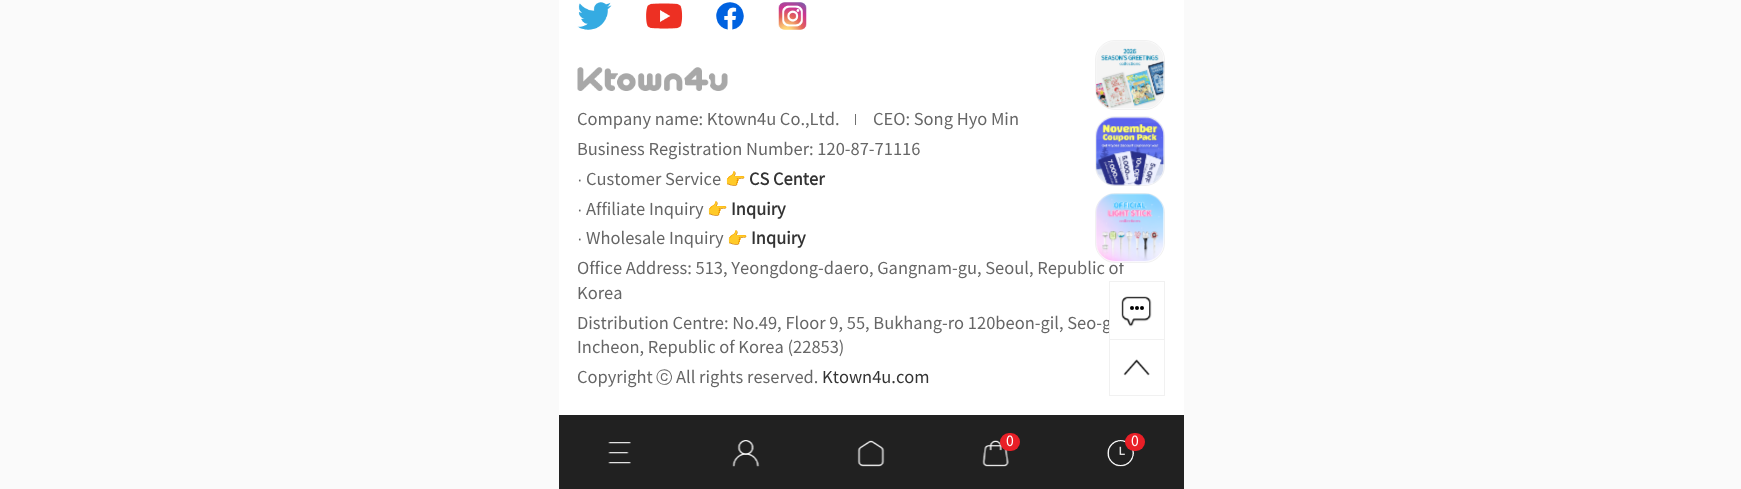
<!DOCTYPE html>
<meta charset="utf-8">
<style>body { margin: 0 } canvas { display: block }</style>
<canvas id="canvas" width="1741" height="489"></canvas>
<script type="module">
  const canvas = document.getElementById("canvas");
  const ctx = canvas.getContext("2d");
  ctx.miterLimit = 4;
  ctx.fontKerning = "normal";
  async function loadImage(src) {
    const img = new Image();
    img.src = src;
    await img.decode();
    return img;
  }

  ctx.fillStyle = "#fafafa";
  ctx.fillRect(0, 0, 1741, 489);
  ctx.fillStyle = "#ffffff";
  ctx.fillRect(559, 0, 625, 415);
  ctx.drawImage(await loadImage("img1.png"), 577, 2, 35, 28);
  ctx.drawImage(await loadImage("img2.png"), 646, 3, 37, 26);
  ctx.drawImage(await loadImage("img3.png"), 716, 2, 28, 28);
  ctx.drawImage(await loadImage("img4.png"), 778, 2, 29, 28);
  ctx.drawImage(await loadImage("img5.png"), 577, 67, 151, 24);
  ctx.font = "16.5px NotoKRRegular";
  ctx.fillStyle = "#666666";
  ctx.fillText("Company name: Ktown4u Co.,Ltd.", 577, 125);
  ctx.fillStyle = "#707070";
  ctx.fillRect(855, 114, 1, 11);
  ctx.fillStyle = "#666666";
  ctx.fillText("CEO: Song Hyo Min", 873, 125);
  ctx.fillText("Business Registration Number: 120-87-71116", 577, 155);
  ctx.font = "16.5px Liberation Sans";
  ctx.fillText("·", 577, 185);
  ctx.font = "16.5px NotoKRRegular";
  ctx.fillText("Customer Service", 586, 185);
  ctx.font = "16.5px Noto Color Emoji";
  ctx.fillText("👉", 725, 185);
  ctx.font = "bold 16.5px NotoKRRegular";
  ctx.fillStyle = "#333333";
  ctx.fillText("CS Center", 749, 185);
  ctx.font = "16.5px Liberation Sans";
  ctx.fillStyle = "#666666";
  ctx.fillText("·", 577, 215);
  ctx.font = "16.5px NotoKRRegular";
  ctx.fillText("Affiliate Inquiry", 586, 215);
  ctx.font = "16.5px Noto Color Emoji";
  ctx.fillText("👉", 707, 215);
  ctx.font = "bold 16.5px NotoKRRegular";
  ctx.fillStyle = "#333333";
  ctx.fillText("Inquiry", 731, 215);
  ctx.font = "16.5px Liberation Sans";
  ctx.fillStyle = "#666666";
  ctx.fillText("·", 577, 244);
  ctx.font = "16.5px NotoKRRegular";
  ctx.fillText("Wholesale Inquiry", 586, 244);
  ctx.font = "16.5px Noto Color Emoji";
  ctx.fillText("👉", 727, 244);
  ctx.font = "bold 16.5px NotoKRRegular";
  ctx.fillStyle = "#333333";
  ctx.fillText("Inquiry", 751, 244);
  ctx.font = "16.5px NotoKRRegular";
  ctx.fillStyle = "#666666";
  ctx.fillText("Office Address: 513, Yeongdong-daero, Gangnam-gu, Seoul, Republic of", 577, 274);
  ctx.fillText("Korea", 577, 299);
  ctx.fillText("Distribution Centre: No.49, Floor 9, 55, Bukhang-ro 120beon-gil, Seo-g", 577, 329);
  ctx.fillText("Incheon, Republic of Korea (22853)", 577, 353);
  ctx.fillText("Copyright", 577, 383);
  ctx.font = "500 16.5px WenQuanYi Zen Hei";
  ctx.fillText("ⓒ", 656, 383);
  ctx.font = "16.5px NotoKRRegular";
  ctx.fillText("All rights reserved.", 676, 383);
  ctx.fillStyle = "#333333";
  ctx.fillText("Ktown4u.com", 822, 383);
  ctx.beginPath();
  ctx.roundRect(1095.5, 40.5, 69, 69, 19.5);
  ctx.strokeStyle = "#f1f1f1";
  ctx.stroke();
  ctx.drawImage(await loadImage("img6.png"), 1096, 41, 69, 68);
  ctx.beginPath();
  ctx.roundRect(1095.5, 116.5, 69, 69, 19.5);
  ctx.stroke();
  ctx.drawImage(await loadImage("img7.png"), 1096, 117, 69, 69);
  ctx.fillStyle = "#ffffff";
  ctx.beginPath();
  ctx.roundRect(1095.5, 193.5, 69, 69, 19.5);
  ctx.fill();
  ctx.stroke();
  ctx.drawImage(await loadImage("img8.png"), 1096, 193, 69, 69);
  ctx.strokeRect(1109.5, 281.5, 55, 114);
  ctx.fillRect(1110, 320, 1, 12);
  ctx.drawImage(await loadImage("img9.png"), 1121, 296, 31, 31);
  ctx.fillStyle = "#000000";
  ctx.beginPath();
  ctx.arc(1137, 308, 2, 0, Math.PI * 2);
  ctx.fill();
  ctx.beginPath();
  ctx.arc(1132, 308, 2, 0, Math.PI * 2);
  ctx.fill();
  ctx.beginPath();
  ctx.arc(1142, 308, 2, 0, Math.PI * 2);
  ctx.fill();
  ctx.fillStyle = "#f1f1f1";
  ctx.fillRect(1110, 339, 54, 1);
  ctx.drawImage(await loadImage("img10.png"), 1123, 359, 27, 17);
  ctx.fillStyle = "#212121";
  ctx.fillRect(559, 415, 625, 74);
  ctx.drawImage(await loadImage("img11.png"), 608, 442, 23, 22);
  ctx.drawImage(await loadImage("img12.png"), 732, 440, 28, 27);
  ctx.drawImage(await loadImage("img13.png"), 857, 440, 28, 27);
  ctx.drawImage(await loadImage("img14.png"), 982, 440, 27, 27);
  ctx.fillStyle = "#e91f27";
  ctx.beginPath();
  ctx.roundRect(1000, 433, 20, 18, 9);
  ctx.fill();
  ctx.font = "14px NotoKRRegular";
  ctx.fillStyle = "#ffffff";
  ctx.fillText("0", 1006, 446);
  ctx.drawImage(await loadImage("img15.png"), 1107, 440, 27, 27);
  ctx.fillStyle = "#e91f27";
  ctx.beginPath();
  ctx.roundRect(1125, 433, 20, 18, 9);
  ctx.fill();
  ctx.fillStyle = "#ffffff";
  ctx.fillText("0", 1131, 446);
</script>
